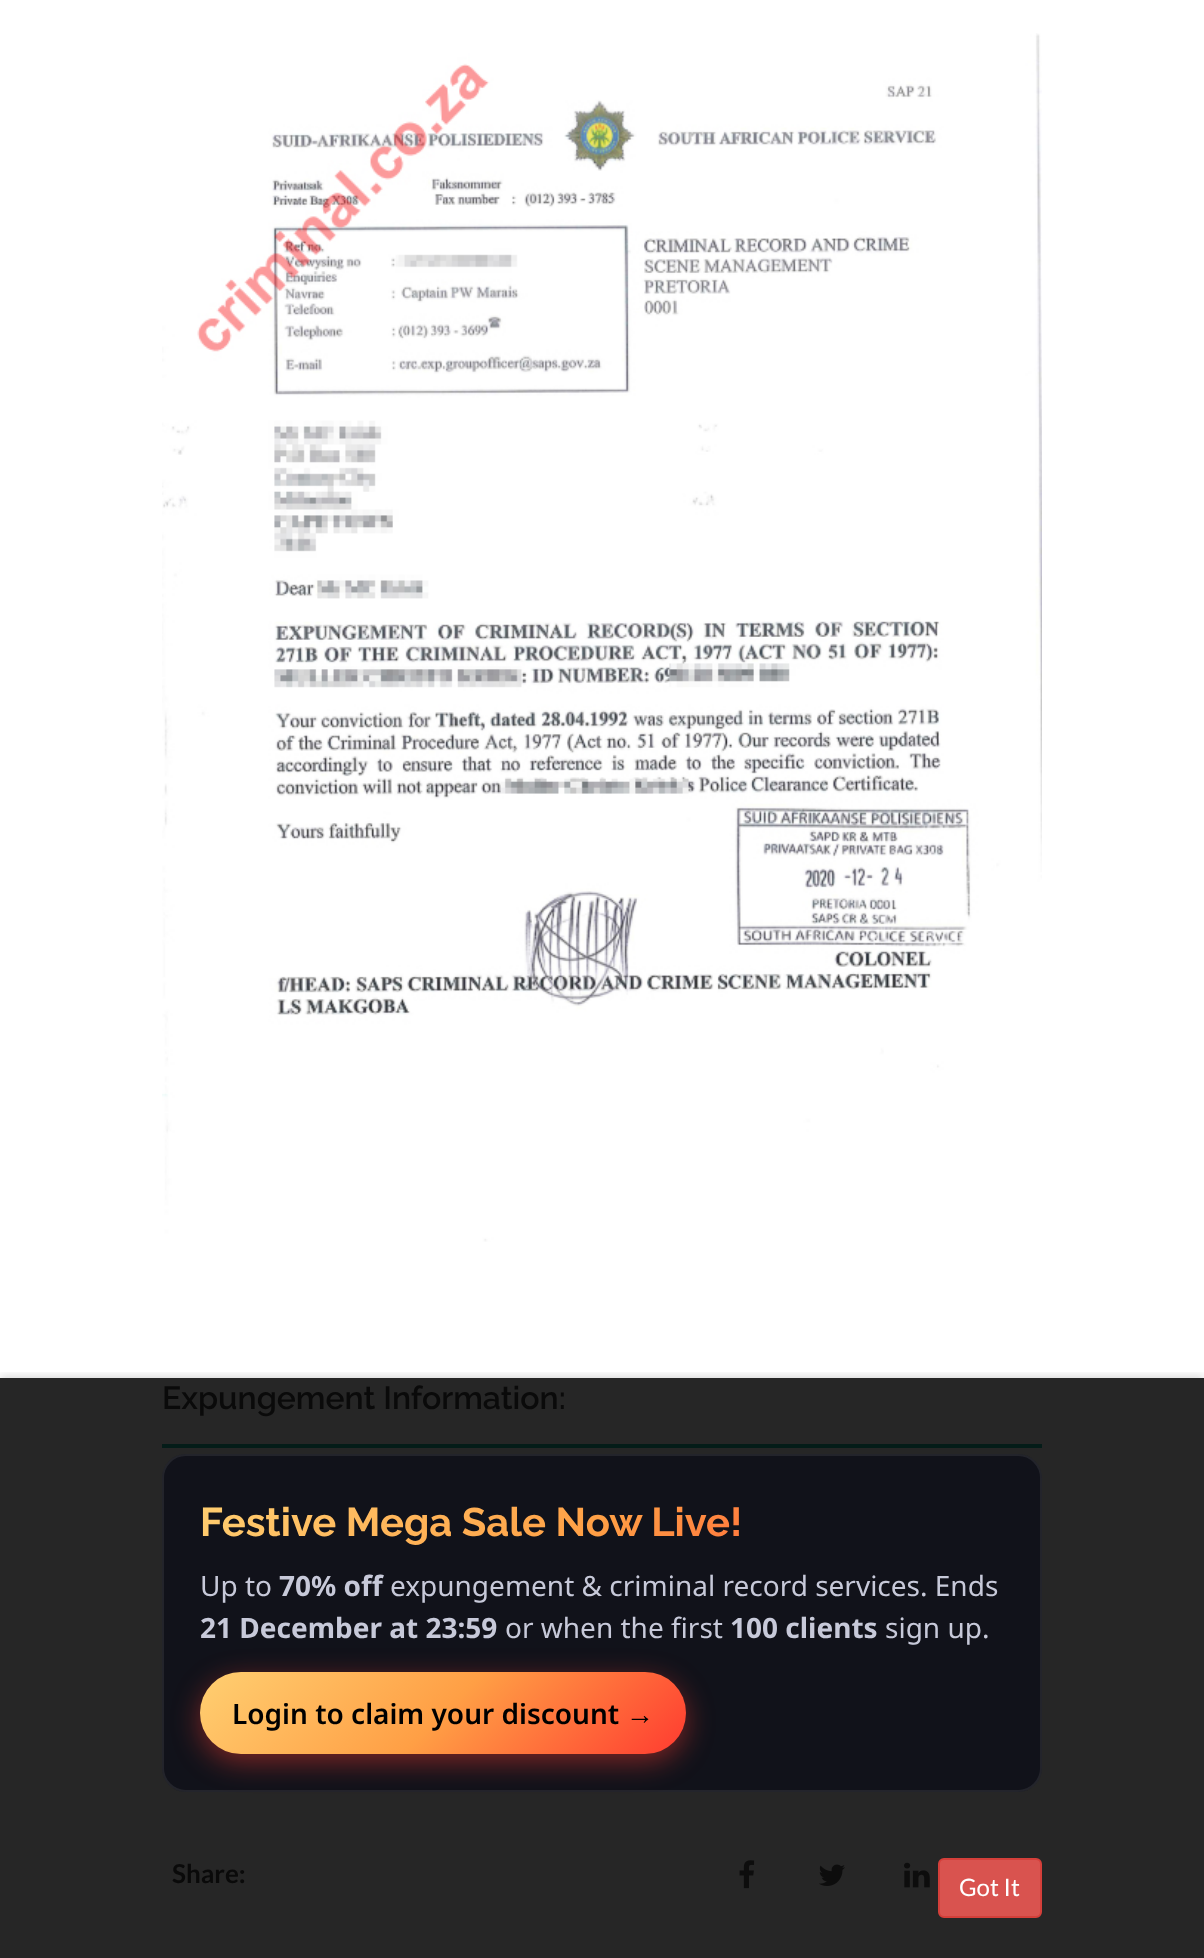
<!DOCTYPE html>
<meta charset="utf-8">
<style>body { margin: 0 } canvas { display: block }</style>
<canvas id="canvas" width="1204" height="1958"></canvas>
<script type="module">
  const canvas = document.getElementById("canvas");
  const ctx = canvas.getContext("2d");
  ctx.miterLimit = 4;
  ctx.fontKerning = "normal";
  async function loadImage(src) {
    const img = new Image();
    img.src = src;
    await img.decode();
    return img;
  }
  let gradient;

  ctx.fillStyle = "#ffffff";
  ctx.fillRect(0, 0, 1204, 1958);
  ctx.fillStyle = "#262626";
  ctx.fillRect(0, 1378, 1204, 580);
  ctx.drawImage(await loadImage("img1.png"), 162, 33, 880, 1209);
  ctx.fillStyle = "#041c18";
  ctx.fillRect(162, 1444, 880, 4);
  ctx.font = "600 32px Raleway";
  ctx.fillStyle = "#0a0a0a";
  ctx.fillText("Expungement Information:", 162, 1409);
  ctx.font = "bold 26px Lato";
  ctx.fillText("Share:", 172, 1883);
  ctx.drawImage(await loadImage("img2.png"), 739, 1860, 16, 29);
  ctx.drawImage(await loadImage("img3.png"), 819, 1864, 26, 22);
  ctx.drawImage(await loadImage("img4.png"), 904, 1862, 26, 26);
  ctx.save();
  ctx.beginPath();
  ctx.rect(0, 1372, 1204, 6);
  ctx.clip();
  ctx.fillStyle = "rgba(0, 0, 0, 0.15)";
  ctx.filter = "blur(4px)";
  ctx.beginPath();
  ctx.rect(0, 1376, 1204, 580);
  ctx.fill();
  ctx.filter = "none";
  ctx.restore();
  ctx.fillStyle = "#11121a";
  ctx.beginPath();
  ctx.roundRect(162, 1454, 880, 338, 24);
  ctx.fill();
  ctx.beginPath();
  ctx.roundRect(163, 1455, 878, 336, 23);
  ctx.strokeStyle = "rgba(255, 255, 255, 0.08)";
  ctx.lineWidth = 2;
  ctx.stroke();
  ctx.font = "bold 40px Raleway";
  gradient = ctx.createLinearGradient(386, 1306, 818, 1738);
  gradient.addColorStop(0, "#ffcf71");
  gradient.addColorStop(0.5, "#ff9f45");
  gradient.addColorStop(1, "#ff3b30");
  ctx.fillStyle = gradient;
  ctx.fillText("Festive Mega Sale Now Live!", 200, 1536);
  ctx.font = "28px Noto Sans";
  ctx.fillStyle = "#c7c9d9";
  ctx.fillText("Up to", 200, 1596);
  ctx.font = "bold 28px Noto Sans";
  ctx.fillText("70% off", 279, 1596);
  ctx.font = "28px Noto Sans";
  ctx.fillText("expungement & criminal record services. Ends", 390, 1596);
  ctx.font = "bold 28px Noto Sans";
  ctx.fillText("21 December at 23:59", 200, 1638);
  ctx.font = "28px Noto Sans";
  ctx.fillText("or when the first", 505, 1638);
  ctx.font = "bold 28px Noto Sans";
  ctx.fillText("100 clients", 730, 1638);
  ctx.font = "28px Noto Sans";
  ctx.fillText("sign up.", 885, 1638);
  ctx.fillStyle = "rgba(255, 59, 48, 0.45)";
  ctx.filter = "blur(14px)";
  ctx.beginPath();
  ctx.roundRect(200, 1680, 486, 82, 41);
  ctx.fill();
  ctx.filter = "none";
  gradient = ctx.createLinearGradient(301, 1571, 585, 1855);
  gradient.addColorStop(0, "#ffcf71");
  gradient.addColorStop(0.5, "#ff9f45");
  gradient.addColorStop(1, "#ff3b30");
  ctx.fillStyle = gradient;
  ctx.beginPath();
  ctx.roundRect(200, 1672, 486, 82, 41);
  ctx.fill();
  ctx.font = "600 28px Noto Sans";
  ctx.fillStyle = "#000000";
  ctx.fillText("Login to claim your discount", 232, 1724);
  ctx.font = "bold 28px Liberation Sans";
  ctx.fillText("→", 626, 1724);
  ctx.fillStyle = "#d9534f";
  ctx.beginPath();
  ctx.roundRect(939, 1859, 102, 58, 5);
  ctx.fill();
  ctx.strokeStyle = "#d43f3a";
  ctx.stroke();
  ctx.font = "24px Lato";
  ctx.fillStyle = "#ffffff";
  ctx.fillText("Got It", 959, 1896);
</script>
